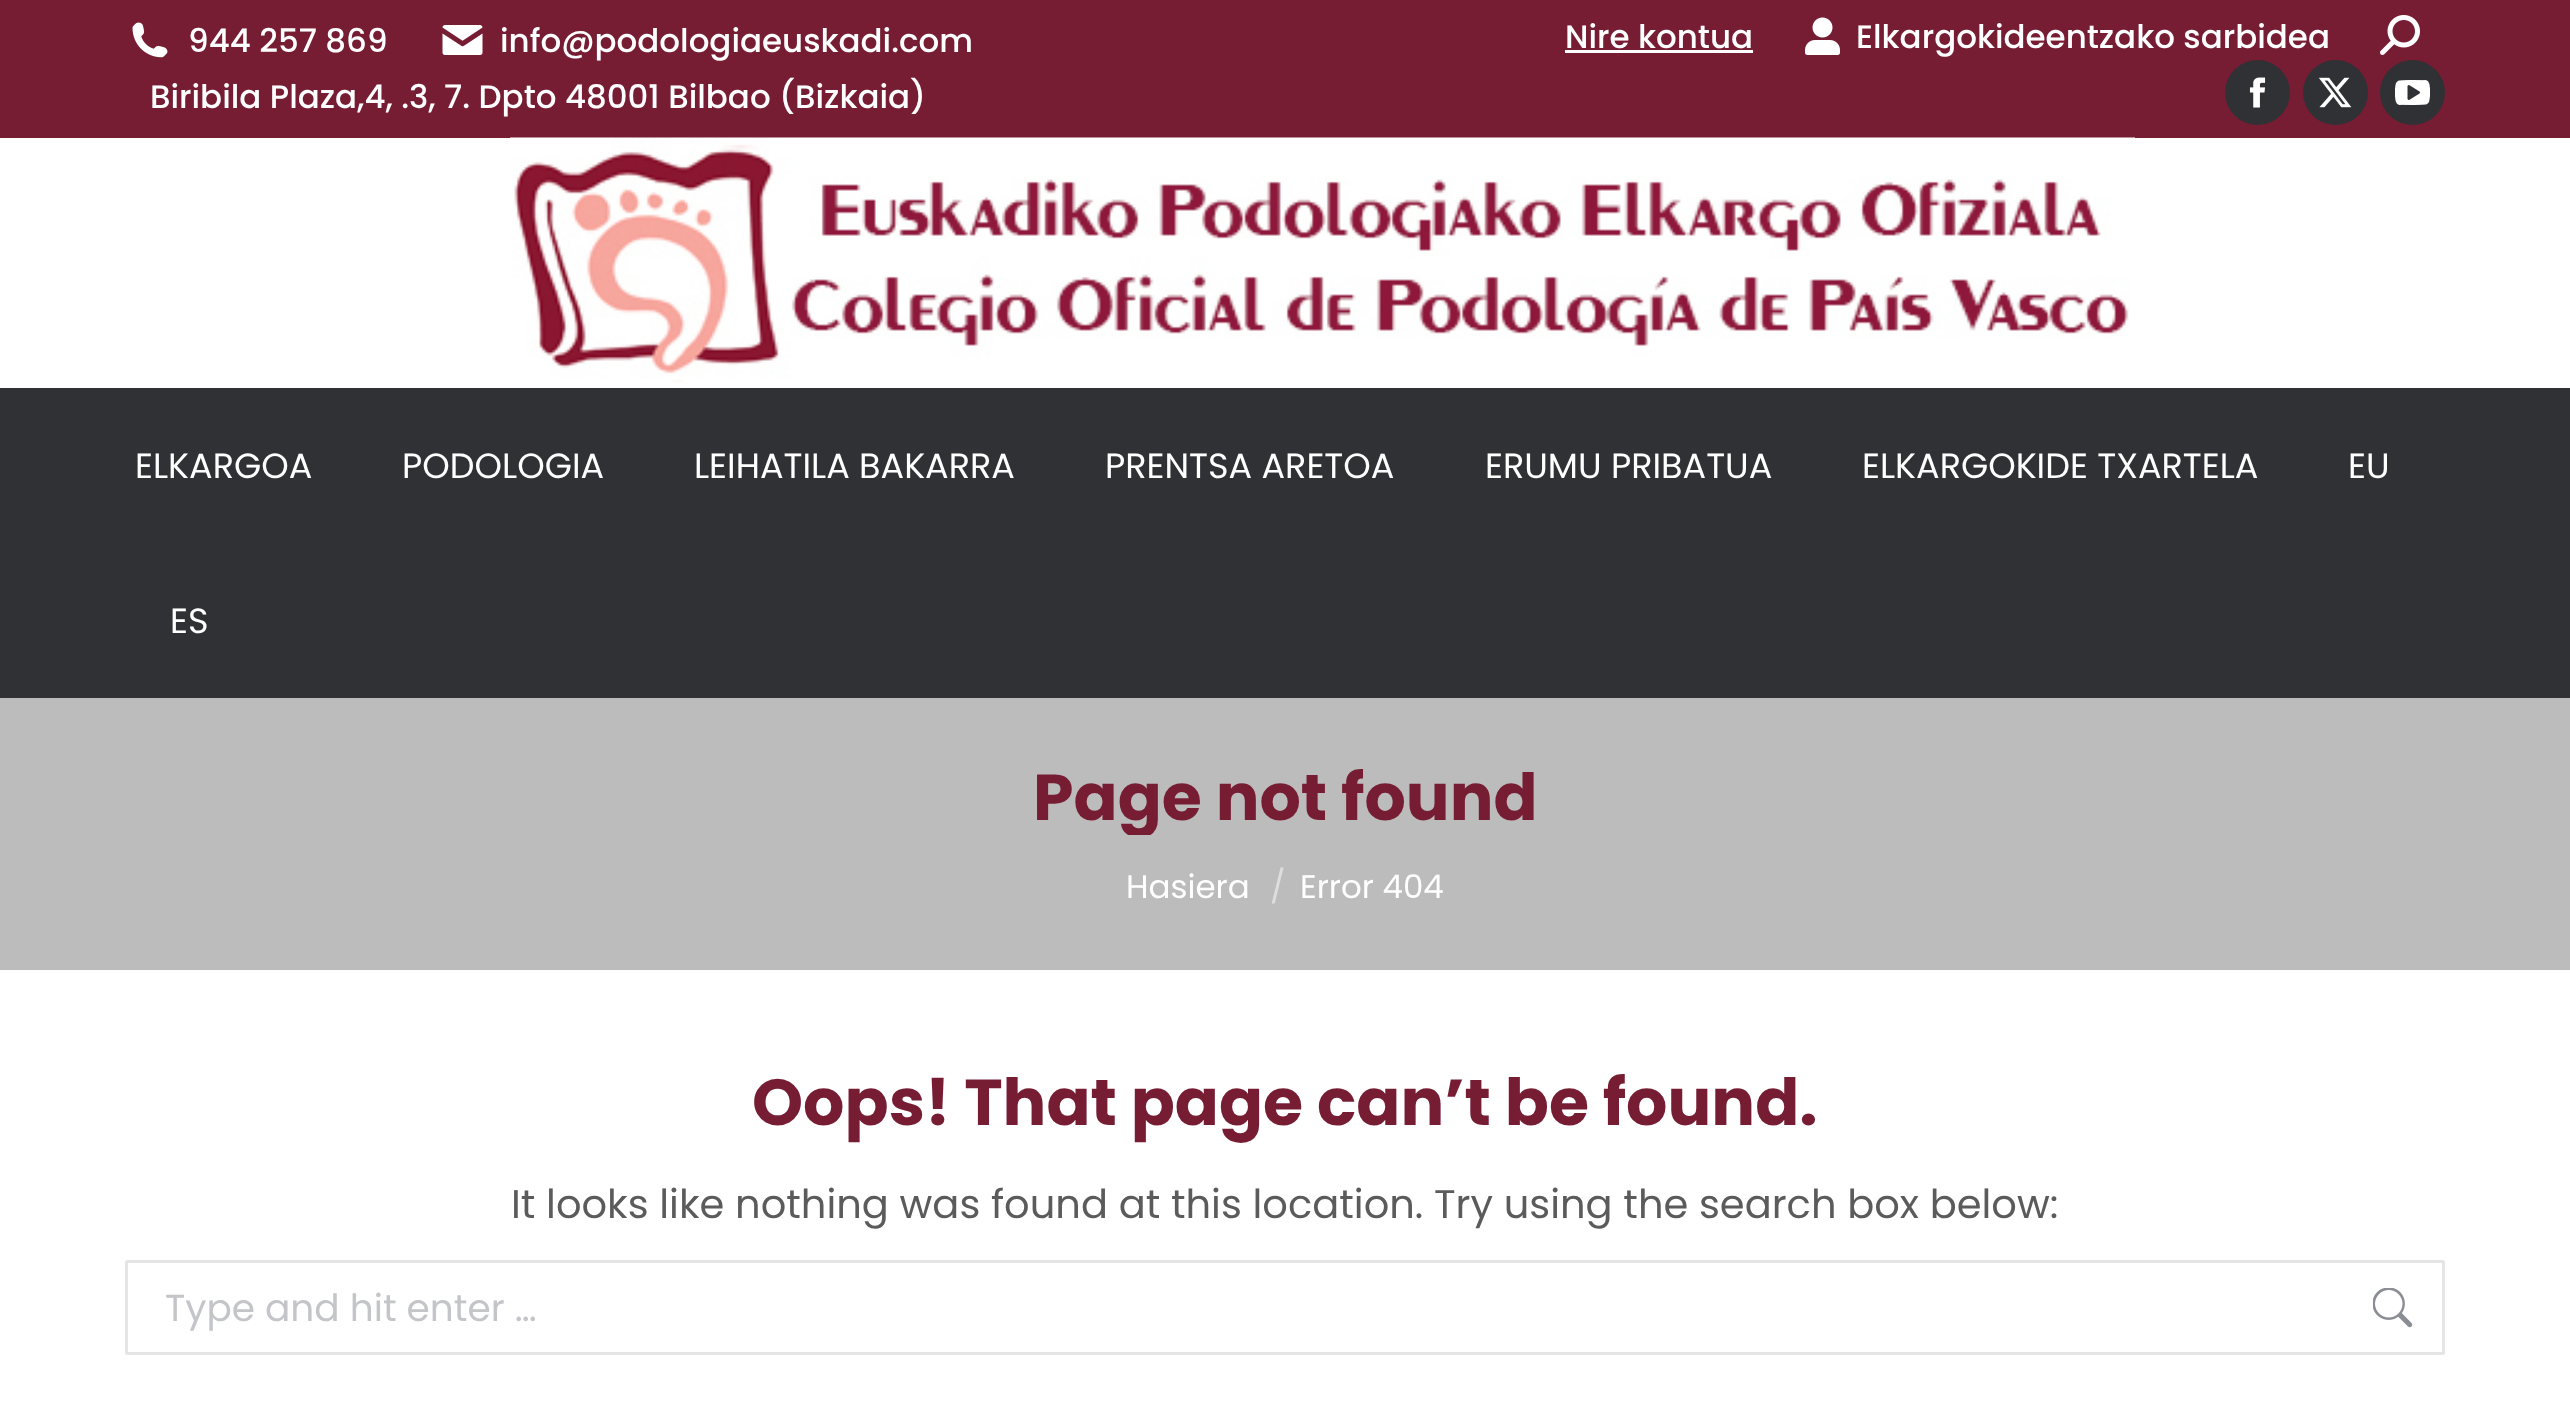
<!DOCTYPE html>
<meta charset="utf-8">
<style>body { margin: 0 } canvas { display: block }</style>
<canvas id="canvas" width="2570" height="1403"></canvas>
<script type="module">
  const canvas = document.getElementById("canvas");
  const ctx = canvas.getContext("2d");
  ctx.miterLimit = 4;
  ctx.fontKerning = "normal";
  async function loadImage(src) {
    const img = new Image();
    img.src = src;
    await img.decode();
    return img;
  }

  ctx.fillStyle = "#ffffff";
  ctx.fillRect(0, 0, 2570, 1403);
  ctx.fillStyle = "#761d34";
  ctx.fillRect(0, 0, 2570, 138);
  ctx.drawImage(await loadImage("img1.png"), 132, 22, 36, 36);
  ctx.font = "500 32.5px Poppins";
  ctx.fillStyle = "#ffffff";
  ctx.fillText("944 257 869", 188, 52);
  ctx.drawImage(await loadImage("img2.png"), 442, 25, 41, 30);
  ctx.fillText("info@podologiaeuskadi.com", 500, 52);
  ctx.fillText("Biribila Plaza,4, .3, 7. Dpto 48001 Bilbao (Bizkaia)", 150, 108);
  ctx.fillText("Nire kontua", 1565, 48);
  ctx.fillRect(1565, 50, 188, 3);
  ctx.drawImage(await loadImage("img3.png"), 1805, 17, 35, 38);
  ctx.fillText("Elkargokideentzako sarbidea", 1856, 48);
  ctx.drawImage(await loadImage("img4.png"), 2380, 15, 40, 40);
  ctx.fillStyle = "#303135";
  ctx.beginPath();
  ctx.arc(2257.5, 92.5, 32.5, 0, Math.PI * 2);
  ctx.fill();
  ctx.drawImage(await loadImage("img5.png"), 2249, 77, 17, 31);
  ctx.beginPath();
  ctx.arc(2335.5, 92.5, 32.5, 0, Math.PI * 2);
  ctx.fill();
  ctx.drawImage(await loadImage("img6.png"), 2319, 77, 33, 31);
  ctx.beginPath();
  ctx.arc(2412.5, 92.5, 32.5, 0, Math.PI * 2);
  ctx.fill();
  ctx.drawImage(await loadImage("img7.png"), 2395, 80, 35, 25);
  ctx.drawImage(await loadImage("img8.png"), 510, 137, 1625, 246);
  ctx.fillRect(0, 388, 2570, 310);
  ctx.font = "35px Poppins";
  ctx.fillStyle = "#ffffff";
  ctx.fillText("ELKARGOA", 135, 478);
  ctx.fillText("PODOLOGIA", 402, 478);
  ctx.fillText("LEIHATILA BAKARRA", 694, 478);
  ctx.fillText("PRENTSA ARETOA", 1105, 478);
  ctx.fillText("ERUMU PRIBATUA", 1485, 478);
  ctx.fillText("ELKARGOKIDE TXARTELA", 1862, 478);
  ctx.fillText("EU", 2348, 478);
  ctx.fillText("ES", 170, 633);
  ctx.fillStyle = "#bcbcbc";
  ctx.fillRect(0, 698, 2570, 272);
  ctx.save();
  ctx.beginPath();
  ctx.rect(1033, 760, 505, 75);
  ctx.clip();
  ctx.font = "bold 65px Poppins";
  ctx.fillStyle = "#761d34";
  ctx.fillText("Page not found", 1033, 820);
  ctx.restore();
  ctx.font = "32.5px Poppins";
  ctx.fillStyle = "#ffffff";
  ctx.fillText("Hasiera", 1126, 898);
  ctx.fillStyle = "#dedede";
  ctx.fillText("/", 1270, 898);
  ctx.fillStyle = "#ffffff";
  ctx.fillText("Error 404", 1300, 898);
  ctx.font = "bold 65px Poppins";
  ctx.fillStyle = "#761d34";
  ctx.fillText("Oops! That page can’t be found.", 752, 1125);
  ctx.font = "40px Poppins";
  ctx.fillStyle = "#5b5b5b";
  ctx.fillText("It looks like nothing was found at this location. Try using the search box below:", 511, 1218);
  ctx.beginPath();
  ctx.roundRect(126.5, 1261.5, 2317, 92, 1);
  ctx.strokeStyle = "#e5e5e5";
  ctx.lineWidth = 3;
  ctx.stroke();
  ctx.font = "37.5px Poppins";
  ctx.fillStyle = "#c4c5c9";
  ctx.fillText("Type and hit enter …", 165, 1321);
  ctx.drawImage(await loadImage("img9.png"), 2373, 1288, 40, 40);
</script>
